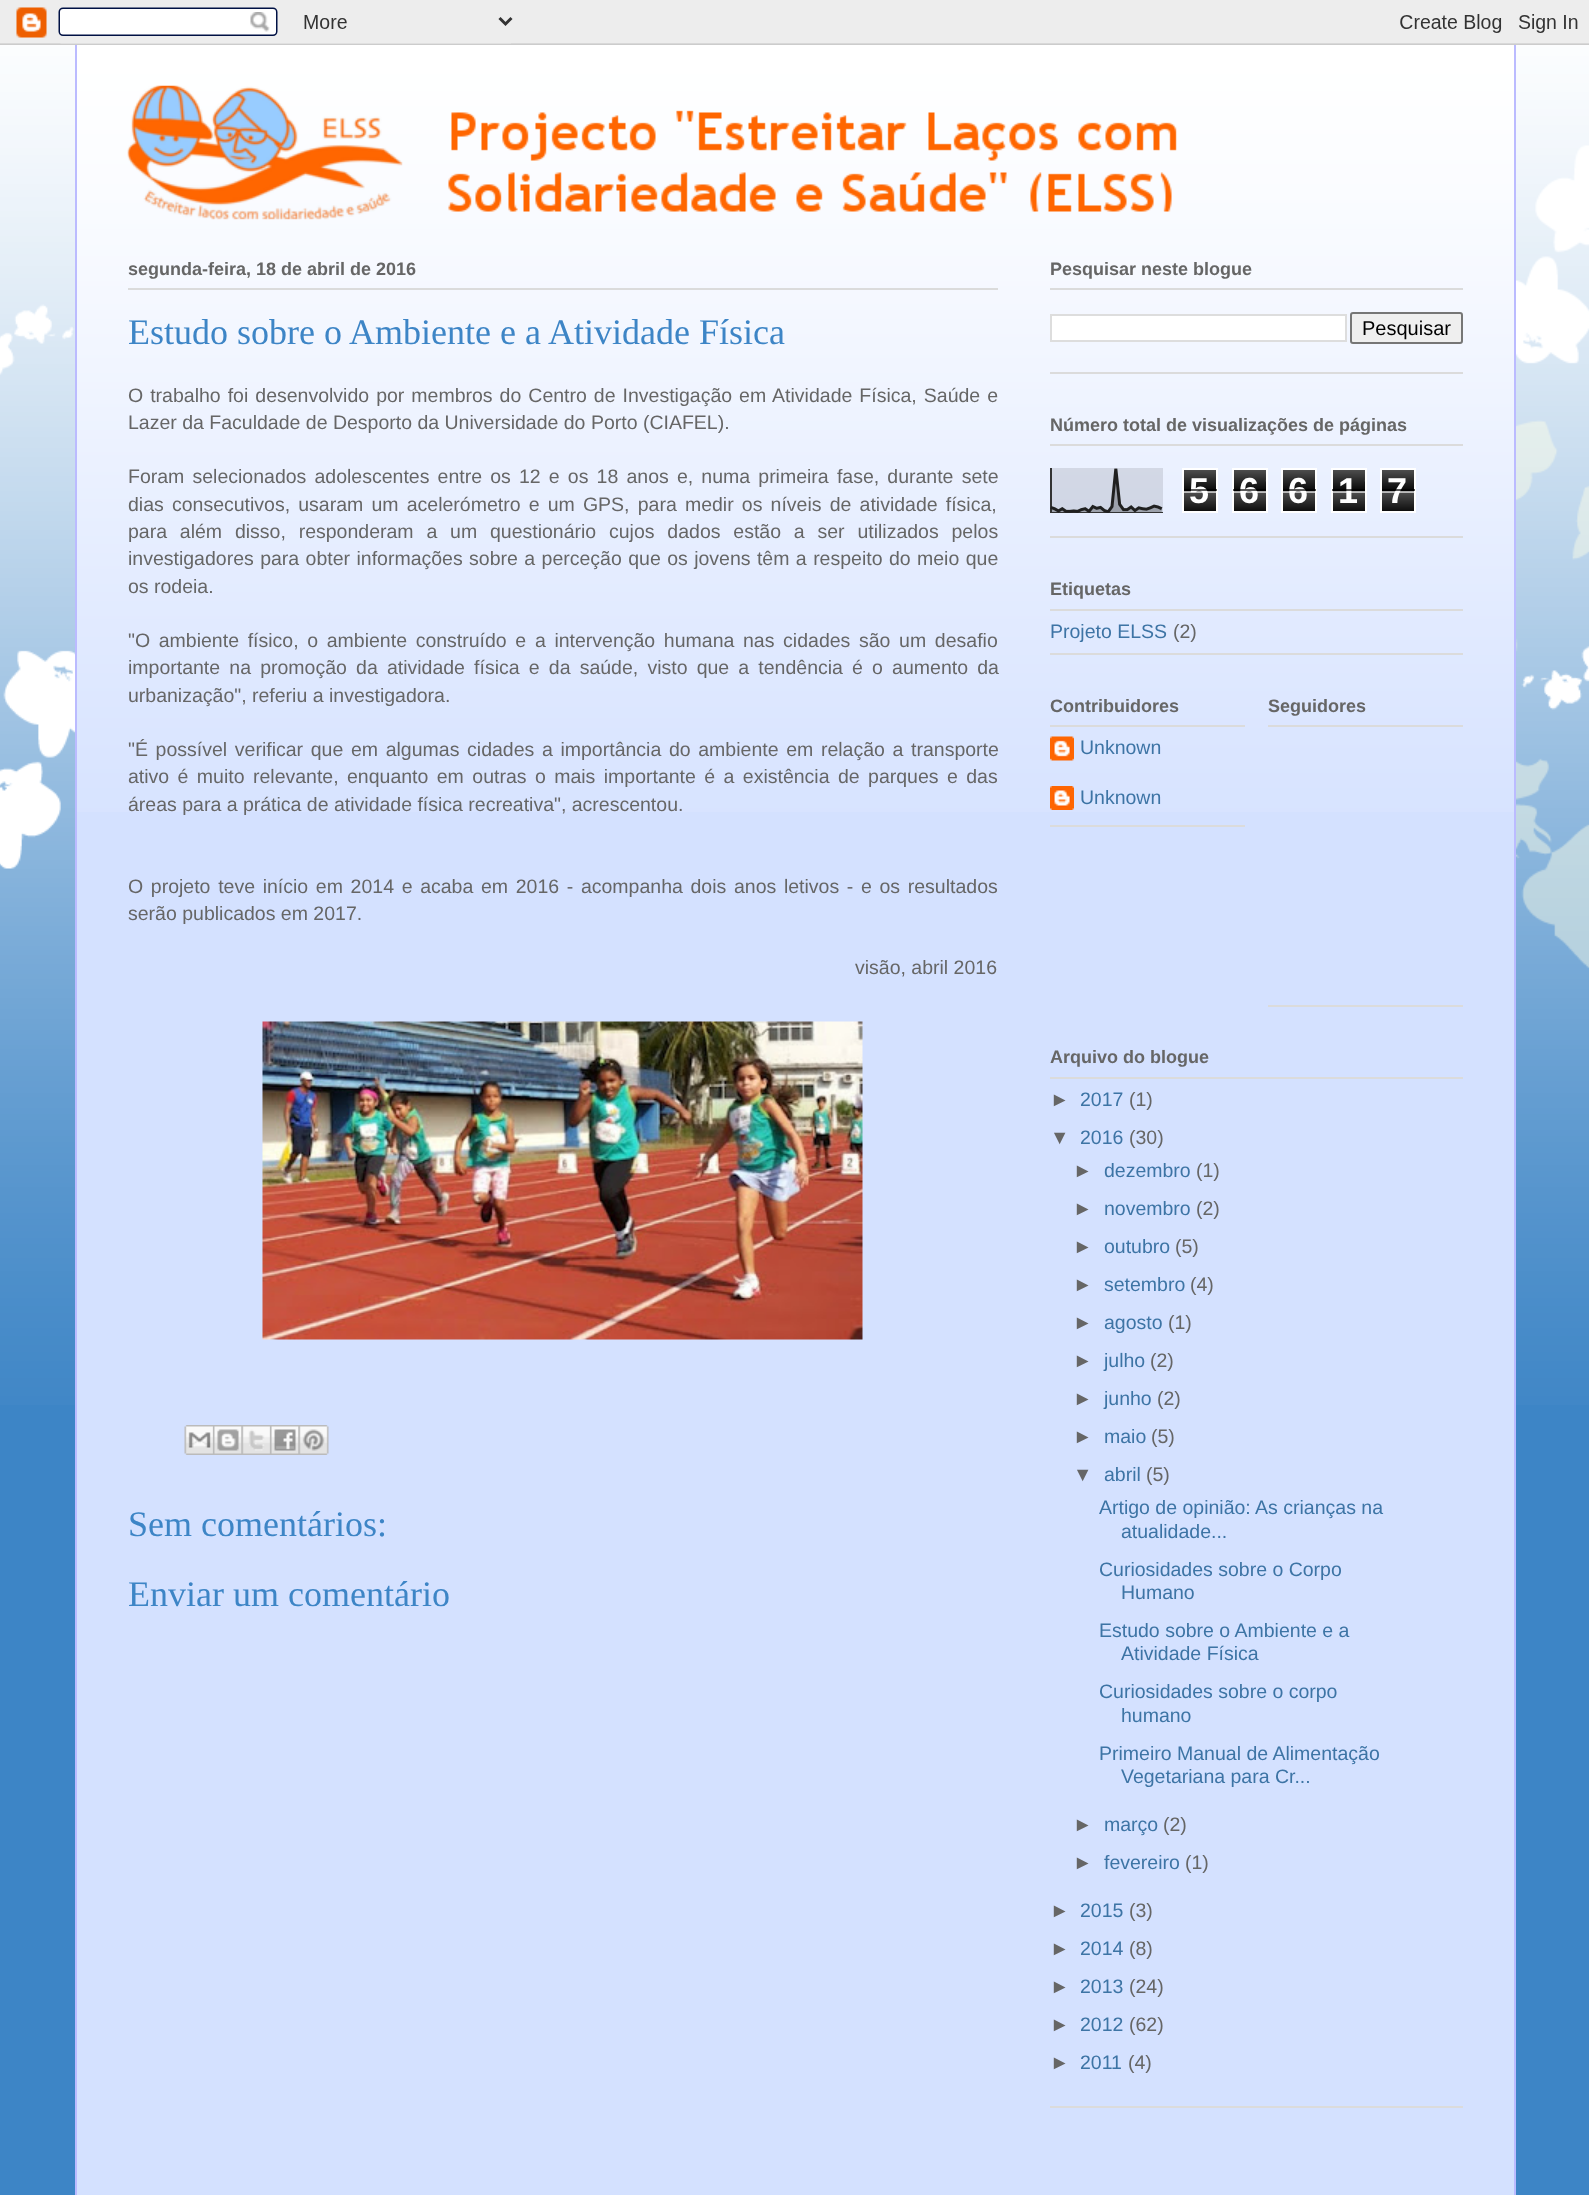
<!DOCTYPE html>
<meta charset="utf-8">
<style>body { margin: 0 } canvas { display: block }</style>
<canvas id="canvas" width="1589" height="2195"></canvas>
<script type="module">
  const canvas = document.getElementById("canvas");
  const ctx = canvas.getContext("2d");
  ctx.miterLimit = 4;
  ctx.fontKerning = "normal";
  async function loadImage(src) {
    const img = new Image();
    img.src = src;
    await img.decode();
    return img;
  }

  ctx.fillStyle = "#3d85c6";
  ctx.fillRect(0, 0, 1589, 2195);
  ctx.drawImage(await loadImage("img2.png"), 0, 43, 1589, 1362);
  ctx.drawImage(await loadImage("img1.png"), 0, 0, 1589, 45);
  ctx.fillStyle = "#d4e1ff";
  ctx.fillRect(77, 55, 1437, 2140);
  ctx.drawImage(await loadImage("img3.png"), 77, 45, 1437, 767);
  ctx.fillStyle = "#bbbbff";
  ctx.fillRect(1514, 45, 2, 2150);
  ctx.fillRect(75, 45, 2, 2150);
  ctx.drawImage(await loadImage("img4.png"), 127, 85, 1050, 135);
  ctx.fillStyle = "#dbdbdb";
  ctx.fillRect(128, 288, 870, 2);
  ctx.font = "bold 18px Liberation Sans";
  ctx.fillStyle = "#666666";
  ctx.fillText("segunda-feira, 18 de abril de 2016", 128, 275);
  ctx.font = "36px Liberation Serif";
  ctx.fillStyle = "#3d85c6";
  ctx.fillText("Estudo sobre o Ambiente e a Atividade Física", 128, 344);
  ctx.wordSpacing = "1.6px";
  ctx.font = "19.5px Liberation Sans";
  ctx.fillStyle = "#666666";
  ctx.fillText("O trabalho foi desenvolvido por membros do Centro de Investigação em Atividade Física, Saúde e", 128, 402);
  ctx.wordSpacing = "0px";
  ctx.fillText("Lazer da Faculdade de Desporto da Universidade do Porto (CIAFEL).", 128, 429);
  ctx.wordSpacing = "2.75px";
  ctx.fillText("Foram selecionados adolescentes entre os 12 e os 18 anos e, numa primeira fase, durante sete", 128, 483);
  ctx.fillText("dias consecutivos, usaram um acelerómetro e um GPS, para medir os níveis de atividade física,", 128, 511);
  ctx.wordSpacing = "7.4px";
  ctx.fillText("para além disso, responderam a um questionário cujos dados estão a ser utilizados pelos", 128, 538);
  ctx.wordSpacing = "1px";
  ctx.fillText("investigadores para obter informações sobre a perceção que os jovens têm a respeito do meio que", 128, 565);
  ctx.wordSpacing = "0px";
  ctx.fillText("os rodeia.", 128, 593);
  ctx.wordSpacing = "3.25px";
  ctx.fillText("\"O ambiente físico, o ambiente construído e a intervenção humana nas cidades são um desafio", 128, 647);
  ctx.wordSpacing = "3.75px";
  ctx.fillText("importante na promoção da atividade física e da saúde, visto que a tendência é o aumento da", 128, 674);
  ctx.wordSpacing = "0px";
  ctx.fillText("urbanização\", referiu a investigadora.", 128, 702);
  ctx.wordSpacing = "2.25px";
  ctx.fillText("\"É possível verificar que em algumas cidades a importância do ambiente em relação a transporte", 128, 756);
  ctx.wordSpacing = "3px";
  ctx.fillText("ativo é muito relevante, enquanto em outras o mais importante é a existência de parques e das", 128, 783);
  ctx.wordSpacing = "0px";
  ctx.fillText("áreas para a prática de atividade física recreativa\", acrescentou.", 128, 811);
  ctx.wordSpacing = "2.25px";
  ctx.fillText("O projeto teve início em 2014 e acaba em 2016 - acompanha dois anos letivos - e os resultados", 128, 893);
  ctx.wordSpacing = "0px";
  ctx.fillText("serão publicados em 2017.", 128, 920);
  ctx.fillText("visão, abril 2016", 855, 974);
  ctx.drawImage(await loadImage("img5.png"), 262, 1021, 601, 319);
  ctx.drawImage(await loadImage("img6.png"), 184, 1425, 29, 30);
  ctx.drawImage(await loadImage("img7.png"), 213, 1425, 29, 30);
  ctx.drawImage(await loadImage("img8.png"), 241, 1425, 29, 30);
  ctx.drawImage(await loadImage("img9.png"), 270, 1425, 29, 30);
  ctx.drawImage(await loadImage("img10.png"), 298, 1425, 31, 30);
  ctx.font = "36px Liberation Serif";
  ctx.fillStyle = "#3d85c6";
  ctx.fillText("Sem comentários:", 128, 1536);
  ctx.fillText("Enviar um comentário", 128, 1606);
  ctx.fillStyle = "#dbdbdb";
  ctx.fillRect(1050, 372, 413, 2);
  ctx.fillRect(1050, 288, 413, 2);
  ctx.font = "bold 18px Liberation Sans";
  ctx.fillStyle = "#666666";
  ctx.fillText("Pesquisar neste blogue", 1050, 275);
  ctx.fillStyle = "#ffffff";
  ctx.beginPath();
  ctx.rect(1051, 315, 295, 26);
  ctx.fill();
  ctx.strokeStyle = "#dddddd";
  ctx.lineWidth = 2;
  ctx.stroke();
  ctx.fillStyle = "#efefef";
  ctx.beginPath();
  ctx.roundRect(1351, 313, 111, 30, 2);
  ctx.fill();
  ctx.strokeStyle = "#767676";
  ctx.stroke();
  ctx.font = "20px Liberation Sans";
  ctx.fillStyle = "#000000";
  ctx.fillText("Pesquisar", 1362, 335);
  ctx.fillStyle = "#dbdbdb";
  ctx.fillRect(1050, 536, 413, 2);
  ctx.fillRect(1050, 444, 413, 2);
  ctx.font = "bold 18px Liberation Sans";
  ctx.fillStyle = "#666666";
  ctx.fillText("Número total de visualizações de páginas", 1050, 431);
  ctx.drawImage(await loadImage("img11.png"), 1050, 468, 113, 45);
  ctx.drawImage(await loadImage("img12.png"), 1184, 470, 32, 41);
  ctx.strokeStyle = "#ffffff";
  ctx.strokeRect(1183, 469, 34, 43);
  ctx.font = "bold 36px Liberation Sans";
  ctx.fillStyle = "#ffffff";
  ctx.fillText("5", 1189, 503);
  ctx.fillStyle = "rgba(0, 0, 0, 0.65)";
  ctx.fillRect(1184, 489, 33, 2);
  ctx.fillStyle = "rgba(255, 255, 255, 0.65)";
  ctx.fillRect(1184, 491, 33, 2);
  ctx.drawImage(await loadImage("img13.png"), 1234, 470, 32, 41);
  ctx.strokeRect(1233, 469, 34, 43);
  ctx.fillStyle = "#ffffff";
  ctx.fillText("6", 1239, 503);
  ctx.fillStyle = "rgba(0, 0, 0, 0.65)";
  ctx.fillRect(1233, 489, 33, 2);
  ctx.fillStyle = "rgba(255, 255, 255, 0.65)";
  ctx.fillRect(1233, 491, 33, 2);
  ctx.drawImage(await loadImage("img12.png"), 1283, 470, 32, 41);
  ctx.strokeRect(1282, 469, 34, 43);
  ctx.fillStyle = "#ffffff";
  ctx.fillText("6", 1288, 503);
  ctx.fillStyle = "rgba(0, 0, 0, 0.65)";
  ctx.fillRect(1283, 489, 33, 2);
  ctx.fillStyle = "rgba(255, 255, 255, 0.65)";
  ctx.fillRect(1283, 491, 33, 2);
  ctx.drawImage(await loadImage("img13.png"), 1333, 470, 32, 41);
  ctx.strokeRect(1332, 469, 34, 43);
  ctx.fillStyle = "#ffffff";
  ctx.fillText("1", 1338, 503);
  ctx.fillStyle = "rgba(0, 0, 0, 0.65)";
  ctx.fillRect(1332, 489, 33, 2);
  ctx.fillStyle = "rgba(255, 255, 255, 0.65)";
  ctx.fillRect(1332, 491, 33, 2);
  ctx.drawImage(await loadImage("img12.png"), 1382, 470, 32, 41);
  ctx.strokeRect(1381, 469, 34, 43);
  ctx.fillStyle = "#ffffff";
  ctx.fillText("7", 1387, 503);
  ctx.fillStyle = "rgba(0, 0, 0, 0.65)";
  ctx.fillRect(1382, 489, 33, 2);
  ctx.fillStyle = "rgba(255, 255, 255, 0.65)";
  ctx.fillRect(1382, 491, 33, 2);
  ctx.fillStyle = "#dbdbdb";
  ctx.fillRect(1050, 653, 413, 2);
  ctx.fillRect(1050, 609, 413, 2);
  ctx.font = "bold 18px Liberation Sans";
  ctx.fillStyle = "#666666";
  ctx.fillText("Etiquetas", 1050, 595);
  ctx.font = "19.5px Liberation Sans";
  ctx.fillStyle = "#3d74a5";
  ctx.fillText("Projeto ELSS", 1050, 638);
  ctx.fillStyle = "#666666";
  ctx.fillText("(2)", 1173, 638);
  ctx.fillStyle = "#dbdbdb";
  ctx.fillRect(1050, 825, 195, 2);
  ctx.fillRect(1050, 725, 195, 2);
  ctx.font = "bold 18px Liberation Sans";
  ctx.fillStyle = "#666666";
  ctx.fillText("Contribuidores", 1050, 712);
  ctx.drawImage(await loadImage("img14.png"), 1050, 736, 24, 25);
  ctx.font = "19.5px Liberation Sans";
  ctx.fillStyle = "#3d74a5";
  ctx.fillText("Unknown", 1080, 754);
  ctx.drawImage(await loadImage("img15.png"), 1050, 786, 24, 24);
  ctx.fillText("Unknown", 1080, 804);
  ctx.fillStyle = "#dbdbdb";
  ctx.fillRect(1268, 1005, 195, 2);
  ctx.fillRect(1268, 725, 195, 2);
  ctx.font = "bold 18px Liberation Sans";
  ctx.fillStyle = "#666666";
  ctx.fillText("Seguidores", 1268, 712);
  ctx.fillStyle = "#dbdbdb";
  ctx.fillRect(1050, 2106, 413, 2);
  ctx.fillRect(1050, 1077, 413, 2);
  ctx.fillStyle = "#666666";
  ctx.fillText("Arquivo do blogue", 1050, 1063);
  ctx.font = "19.5px Liberation Sans";
  ctx.fillText("►", 1050, 1106);
  ctx.fillStyle = "#3d74a5";
  ctx.fillText("2017", 1080, 1106);
  ctx.fillStyle = "#666666";
  ctx.fillText("(1)", 1129, 1106);
  ctx.fillText("▼", 1050, 1144);
  ctx.fillStyle = "#3d74a5";
  ctx.fillText("2016", 1080, 1144);
  ctx.fillStyle = "#666666";
  ctx.fillText("(30)", 1129, 1144);
  ctx.fillText("►", 1073, 1177);
  ctx.fillStyle = "#3d74a5";
  ctx.fillText("dezembro", 1104, 1177);
  ctx.fillStyle = "#666666";
  ctx.fillText("(1)", 1196, 1177);
  ctx.fillText("►", 1073, 1215);
  ctx.fillStyle = "#3d74a5";
  ctx.fillText("novembro", 1104, 1215);
  ctx.fillStyle = "#666666";
  ctx.fillText("(2)", 1196, 1215);
  ctx.fillText("►", 1073, 1253);
  ctx.fillStyle = "#3d74a5";
  ctx.fillText("outubro", 1104, 1253);
  ctx.fillStyle = "#666666";
  ctx.fillText("(5)", 1175, 1253);
  ctx.fillText("►", 1073, 1291);
  ctx.fillStyle = "#3d74a5";
  ctx.fillText("setembro", 1104, 1291);
  ctx.fillStyle = "#666666";
  ctx.fillText("(4)", 1190, 1291);
  ctx.fillText("►", 1073, 1329);
  ctx.fillStyle = "#3d74a5";
  ctx.fillText("agosto", 1104, 1329);
  ctx.fillStyle = "#666666";
  ctx.fillText("(1)", 1168, 1329);
  ctx.fillText("►", 1073, 1367);
  ctx.fillStyle = "#3d74a5";
  ctx.fillText("julho", 1104, 1367);
  ctx.fillStyle = "#666666";
  ctx.fillText("(2)", 1150, 1367);
  ctx.fillText("►", 1073, 1405);
  ctx.fillStyle = "#3d74a5";
  ctx.fillText("junho", 1104, 1405);
  ctx.fillStyle = "#666666";
  ctx.fillText("(2)", 1157, 1405);
  ctx.fillText("►", 1073, 1443);
  ctx.fillStyle = "#3d74a5";
  ctx.fillText("maio", 1104, 1443);
  ctx.fillStyle = "#666666";
  ctx.fillText("(5)", 1151, 1443);
  ctx.fillText("▼", 1073, 1481);
  ctx.fillStyle = "#3d74a5";
  ctx.fillText("abril", 1104, 1481);
  ctx.fillStyle = "#666666";
  ctx.fillText("(5)", 1146, 1481);
  ctx.fillStyle = "#3d74a5";
  ctx.fillText("Artigo de opinião: As crianças na", 1099, 1514);
  ctx.fillText("atualidade...", 1121, 1538);
  ctx.fillText("Curiosidades sobre o Corpo", 1099, 1576);
  ctx.fillText("Humano", 1121, 1599);
  ctx.fillText("Estudo sobre o Ambiente e a", 1099, 1637);
  ctx.fillText("Atividade Física", 1121, 1660);
  ctx.fillText("Curiosidades sobre o corpo", 1099, 1698);
  ctx.fillText("humano", 1121, 1722);
  ctx.fillText("Primeiro Manual de Alimentação", 1099, 1760);
  ctx.fillText("Vegetariana para Cr...", 1121, 1783);
  ctx.fillStyle = "#666666";
  ctx.fillText("►", 1073, 1831);
  ctx.fillStyle = "#3d74a5";
  ctx.fillText("março", 1104, 1831);
  ctx.fillStyle = "#666666";
  ctx.fillText("(2)", 1163, 1831);
  ctx.fillText("►", 1073, 1869);
  ctx.fillStyle = "#3d74a5";
  ctx.fillText("fevereiro", 1104, 1869);
  ctx.fillStyle = "#666666";
  ctx.fillText("(1)", 1185, 1869);
  ctx.fillText("►", 1050, 1917);
  ctx.fillStyle = "#3d74a5";
  ctx.fillText("2015", 1080, 1917);
  ctx.fillStyle = "#666666";
  ctx.fillText("(3)", 1129, 1917);
  ctx.fillText("►", 1050, 1955);
  ctx.fillStyle = "#3d74a5";
  ctx.fillText("2014", 1080, 1955);
  ctx.fillStyle = "#666666";
  ctx.fillText("(8)", 1129, 1955);
  ctx.fillText("►", 1050, 1993);
  ctx.fillStyle = "#3d74a5";
  ctx.fillText("2013", 1080, 1993);
  ctx.fillStyle = "#666666";
  ctx.fillText("(24)", 1129, 1993);
  ctx.fillText("►", 1050, 2031);
  ctx.fillStyle = "#3d74a5";
  ctx.fillText("2012", 1080, 2031);
  ctx.fillStyle = "#666666";
  ctx.fillText("(62)", 1129, 2031);
  ctx.fillText("►", 1050, 2069);
  ctx.fillStyle = "#3d74a5";
  ctx.fillText("2011", 1080, 2069);
  ctx.fillStyle = "#666666";
  ctx.fillText("(4)", 1128, 2069);
</script>
